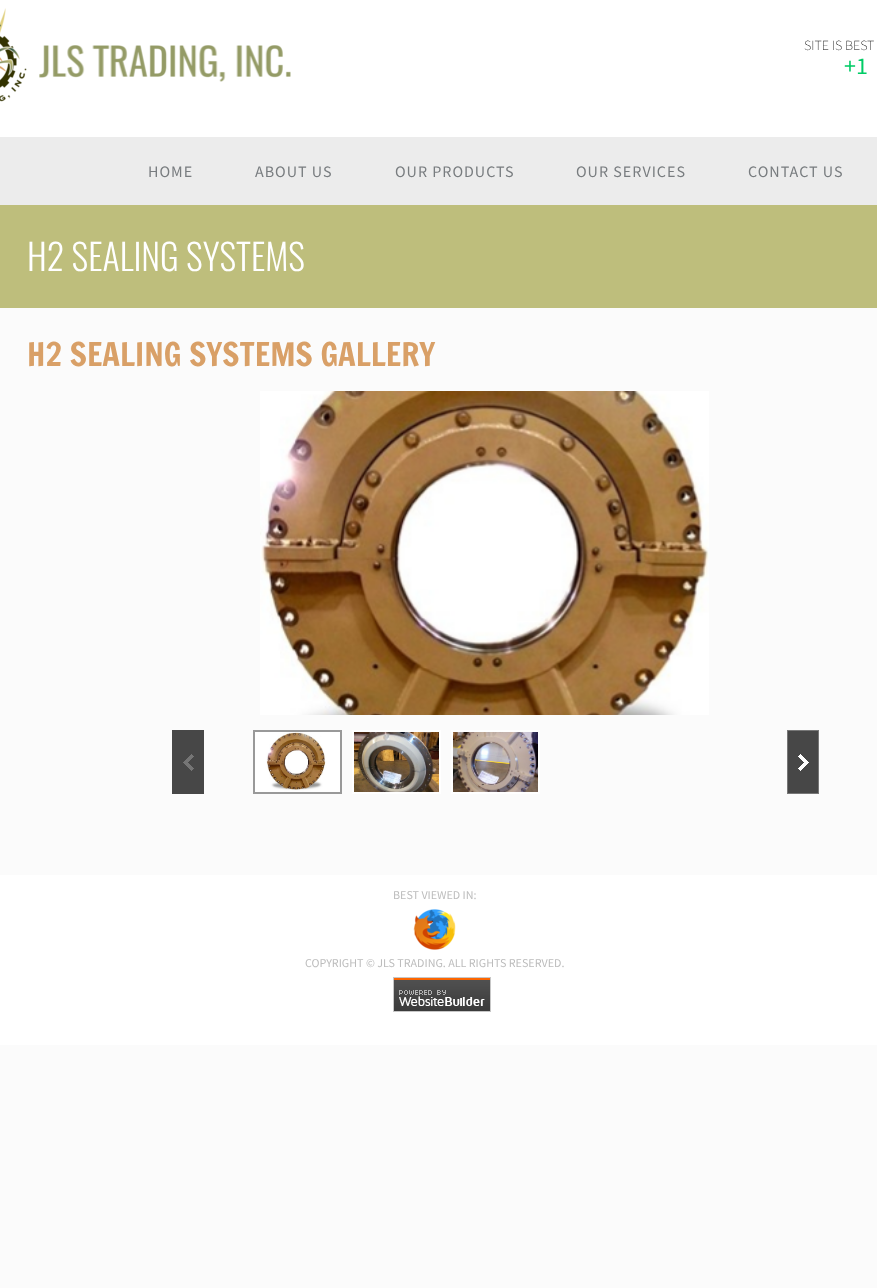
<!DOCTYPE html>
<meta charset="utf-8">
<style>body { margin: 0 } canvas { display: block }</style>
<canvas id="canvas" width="877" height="1288"></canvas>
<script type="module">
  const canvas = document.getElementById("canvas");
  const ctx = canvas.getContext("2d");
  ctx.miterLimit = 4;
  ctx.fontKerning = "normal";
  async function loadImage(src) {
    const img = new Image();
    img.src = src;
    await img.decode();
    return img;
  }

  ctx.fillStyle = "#fbfbfb";
  ctx.fillRect(0, 0, 877, 1288);
  ctx.fillStyle = "#ffffff";
  ctx.fillRect(0, 0, 877, 137);
  ctx.drawImage(await loadImage("img1.png"), 0, 8, 27, 94);
  ctx.drawImage(await loadImage("img2.png"), 39, 45, 252, 37);
  ctx.font = "200 14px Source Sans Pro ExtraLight";
  ctx.fillStyle = "#000000";
  ctx.fillText("SITE IS BEST", 804, 50);
  ctx.font = "24px Source Sans Pro";
  ctx.fillStyle = "#00cc66";
  ctx.fillText("+1", 844, 74);
  ctx.fillStyle = "#ececec";
  ctx.fillRect(0, 137, 877, 68);
  ctx.letterSpacing = "1px";
  ctx.font = "16px Source Sans Pro";
  ctx.fillStyle = "#787c7f";
  ctx.fillText("HOME", 148, 177);
  ctx.fillText("ABOUT US", 255, 177);
  ctx.fillText("OUR PRODUCTS", 395, 177);
  ctx.fillText("OUR SERVICES", 576, 177);
  ctx.fillText("CONTACT US", 748, 177);
  ctx.fillStyle = "#bebe7c";
  ctx.fillRect(0, 205, 877, 103);
  ctx.letterSpacing = "0px";
  ctx.font = "300 36px Oswald";
  ctx.fillStyle = "#ffffff";
  ctx.fillText("H2 SEALING SYSTEMS", 27, 271);
  ctx.font = "32px Francois One";
  ctx.fillStyle = "#d9a067";
  ctx.fillText("H2 SEALING SYSTEMS GALLERY", 27, 366);
  ctx.drawImage(await loadImage("img3.png"), 260, 391, 449, 324);
  ctx.fillStyle = "#474747";
  ctx.fillRect(172, 730, 32, 64);
  ctx.drawImage(await loadImage("img4.png"), 183, 754, 11, 17);
  ctx.fillStyle = "#999999";
  ctx.fillRect(253, 730, 89, 64);
  ctx.drawImage(await loadImage("img5.png"), 255, 732, 85, 60);
  ctx.strokeStyle = "#ffffff";
  ctx.lineWidth = 2;
  ctx.strokeRect(353, 731, 87, 62);
  ctx.drawImage(await loadImage("img6.png"), 354, 732, 85, 60);
  ctx.strokeRect(452, 731, 87, 62);
  ctx.drawImage(await loadImage("img7.png"), 453, 732, 85, 60);
  ctx.fillStyle = "#474747";
  ctx.fillRect(788, 731, 30, 62);
  ctx.drawImage(await loadImage("img8.png"), 798, 754, 11, 17);
  ctx.strokeStyle = "#777777";
  ctx.lineWidth = 1;
  ctx.strokeRect(787.5, 730.5, 31, 63);
  ctx.fillStyle = "#ffffff";
  ctx.fillRect(0, 875, 877, 170);
  ctx.font = "12px Source Sans Pro";
  ctx.fillStyle = "#bcbcbc";
  ctx.fillText("BEST VIEWED IN:", 393, 899);
  ctx.drawImage(await loadImage("img9.png"), 413, 909, 43, 41);
  ctx.fillText("COPYRIGHT © JLS TRADING. ALL RIGHTS RESERVED.", 305, 967);
  ctx.drawImage(await loadImage("img10.png"), 393, 977, 98, 35);
</script>
